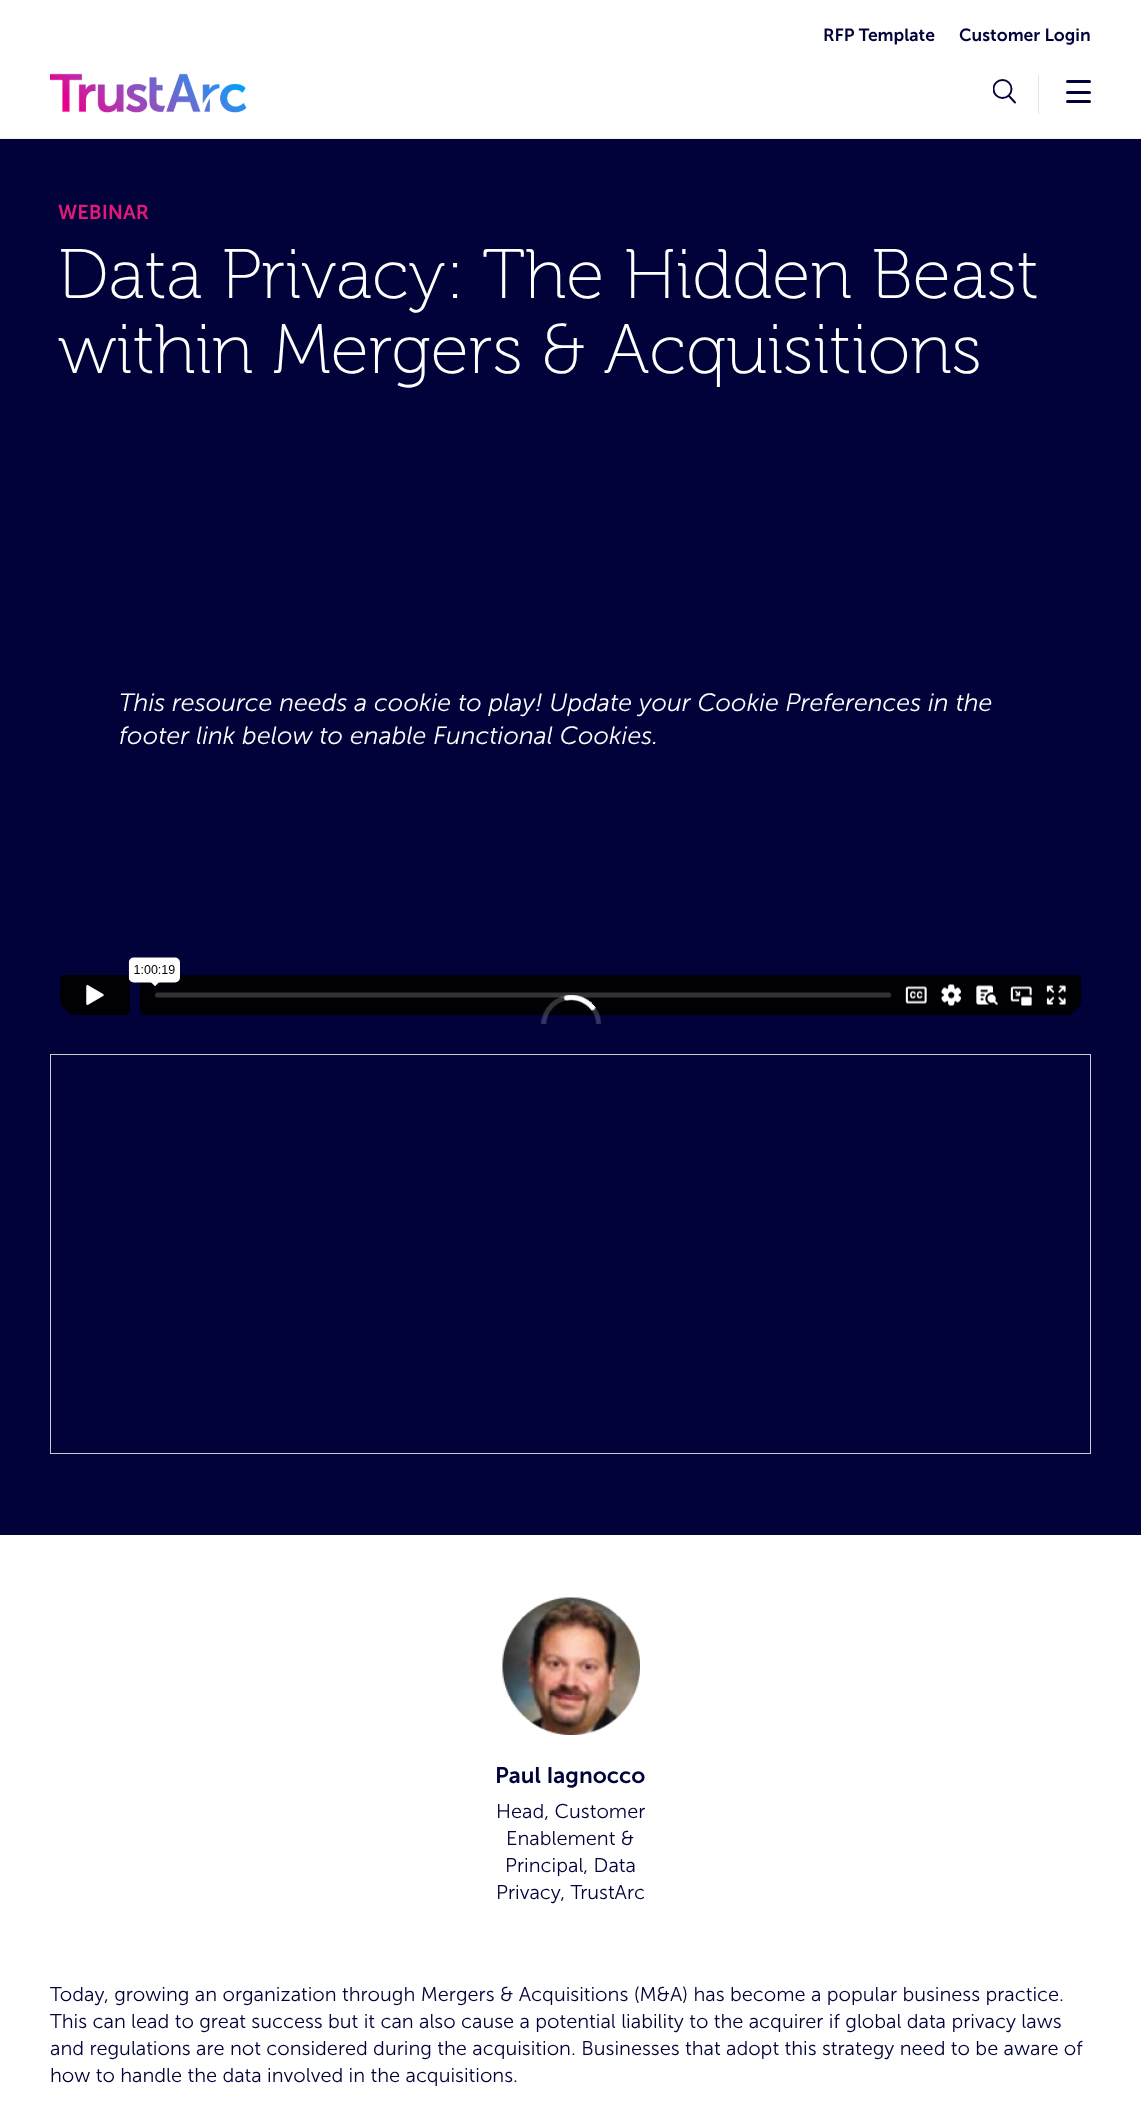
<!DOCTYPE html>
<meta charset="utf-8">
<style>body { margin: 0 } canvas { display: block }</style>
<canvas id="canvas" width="1141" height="2102"></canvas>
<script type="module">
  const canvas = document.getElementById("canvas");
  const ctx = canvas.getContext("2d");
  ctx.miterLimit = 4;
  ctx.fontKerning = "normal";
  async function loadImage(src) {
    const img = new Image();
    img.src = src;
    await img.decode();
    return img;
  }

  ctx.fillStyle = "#ffffff";
  ctx.fillRect(0, 0, 1141, 2102);
  ctx.fillStyle = "#eef2f4";
  ctx.fillRect(0, 138, 1141, 1);
  ctx.font = "600 17.5px 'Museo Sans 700'";
  ctx.fillStyle = "#000239";
  ctx.fillText("RFP Template", 823, 41);
  ctx.fillText("Customer Login", 959, 41);
  ctx.drawImage(await loadImage("img1.png"), 50, 73, 197, 40);
  ctx.save();
  ctx.beginPath();
  ctx.rect(993, 79, 23, 25);
  ctx.clip();
  ctx.beginPath();
  ctx.arc(1002.5, 89, 9, 0, Math.PI * 2);
  ctx.strokeStyle = "#000239";
  ctx.lineWidth = 1.9;
  ctx.stroke();
  ctx.restore();
  ctx.fillStyle = "#dde6f1";
  ctx.fillRect(1038, 75, 1, 39);
  ctx.beginPath();
  ctx.moveTo(1009, 96);
  ctx.lineTo(1015, 102.5);
  ctx.strokeStyle = "#000239";
  ctx.lineWidth = 1.9;
  ctx.lineCap = "round";
  ctx.lineJoin = "round";
  ctx.stroke();
  ctx.fillStyle = "#000239";
  ctx.beginPath();
  ctx.roundRect(1066, 80, 25, 3, 1.5);
  ctx.fill();
  ctx.beginPath();
  ctx.roundRect(1066, 91, 25, 3, 1.5);
  ctx.fill();
  ctx.beginPath();
  ctx.roundRect(1066, 100, 25, 3, 1.5);
  ctx.fill();
  ctx.fillRect(0, 139, 1141, 1396);
  ctx.font = "600 20px 'Museo Sans 700'";
  ctx.fillStyle = "#e11a77";
  ctx.fillText("WEBINAR", 58, 219);
  ctx.font = "300 70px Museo";
  ctx.fillStyle = "#ffffff";
  ctx.fillText("Data Privacy: The Hidden Beast", 58, 298);
  ctx.fillText("within Mergers & Acquisitions", 58, 373);
  ctx.font = "italic 300 25px 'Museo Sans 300'";
  ctx.fillText("This resource needs a cookie to play! Update your Cookie Preferences in the", 119, 711);
  ctx.fillText("footer link below to enable Functional Cookies.", 119, 744);
  ctx.drawImage(await loadImage("img2.png"), 60, 957, 1022, 67);
  ctx.strokeStyle = "#cccccc";
  ctx.lineWidth = 1;
  ctx.lineJoin = "miter";
  ctx.strokeRect(50.5, 1054.5, 1040, 399);
  ctx.drawImage(await loadImage("img3.png"), 502, 1597, 138, 138);
  ctx.font = "600 22.5px 'Museo Sans 700'";
  ctx.fillStyle = "#000239";
  ctx.fillText("Paul Iagnocco", 495, 1783);
  ctx.font = "300 20px 'Museo Sans 300'";
  ctx.fillText("Head, Customer", 496, 1818);
  ctx.fillText("Enablement &", 506, 1845);
  ctx.fillText("Principal, Data", 505, 1872);
  ctx.fillText("Privacy, TrustArc", 496, 1899);
  ctx.fillText("Today, growing an organization through Mergers & Acquisitions (M&A) has become a popular business practice.", 50, 2001);
  ctx.fillText("This can lead to great success but it can also cause a potential liability to the acquirer if global data privacy laws", 50, 2028);
  ctx.fillText("and regulations are not considered during the acquisition. Businesses that adopt this strategy need to be aware of", 50, 2055);
  ctx.fillText("how to handle the data involved in the acquisitions.", 50, 2082);
</script>
